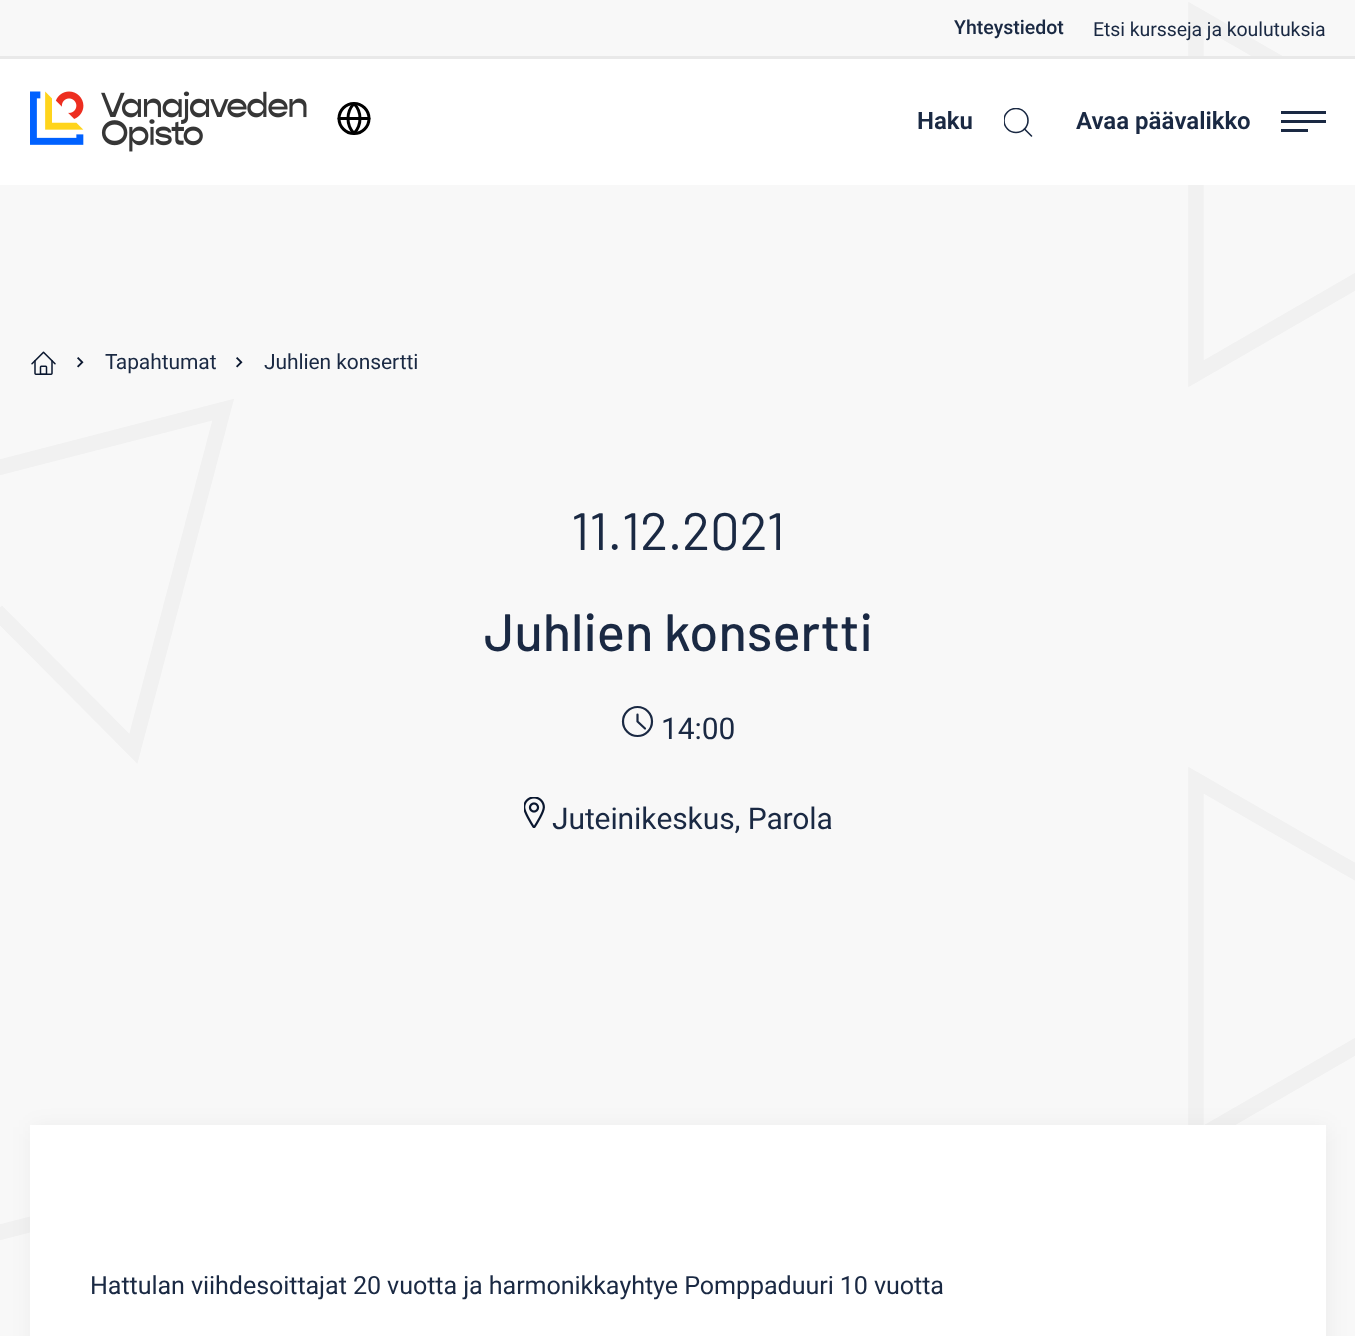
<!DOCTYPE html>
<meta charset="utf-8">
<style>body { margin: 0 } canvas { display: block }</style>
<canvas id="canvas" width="1355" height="1336"></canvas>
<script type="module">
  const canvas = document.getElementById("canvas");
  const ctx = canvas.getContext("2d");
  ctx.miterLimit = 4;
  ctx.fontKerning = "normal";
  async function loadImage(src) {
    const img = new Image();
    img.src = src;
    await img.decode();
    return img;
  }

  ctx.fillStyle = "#f8f8f8";
  ctx.fillRect(0, 0, 1355, 1336);
  ctx.drawImage(await loadImage("img1.png"), 0, 2, 1355, 1334);
  ctx.fillStyle = "#e9e9e9";
  ctx.fillRect(0, 56, 1355, 3);
  ctx.font = "500 19.5px Heebo";
  ctx.fillStyle = "#1a2943";
  ctx.fillText("Yhteystiedot", 954, 34);
  ctx.letterSpacing = "-0.08px";
  ctx.font = "19.5px Heebo";
  ctx.fillText("Etsi kursseja ja koulutuksia", 1093, 36);
  ctx.fillStyle = "#ffffff";
  ctx.fillRect(0, 59, 1355, 126);
  ctx.drawImage(await loadImage("img2.png"), 30, 91, 277, 61);
  ctx.beginPath();
  ctx.arc(354, 118.5, 15, 0, Math.PI * 2);
  ctx.strokeStyle = "#000000";
  ctx.lineWidth = 3;
  ctx.stroke();
  ctx.beginPath();
  ctx.moveTo(339, 118.5);
  ctx.lineTo(369, 118.5);
  ctx.moveTo(354, 103.5);
  ctx.bezierCurveTo(362, 112, 362, 125, 354, 133.5);
  ctx.bezierCurveTo(346, 125, 346, 112, 354, 103.5);
  ctx.closePath();
  ctx.lineCap = "round";
  ctx.lineJoin = "round";
  ctx.stroke();
  ctx.font = "600 24px Heebo";
  ctx.fillStyle = "#1a2943";
  ctx.fillText("Haku", 917, 129);
  ctx.save();
  ctx.beginPath();
  ctx.rect(1004, 108, 28, 29);
  ctx.clip();
  ctx.beginPath();
  ctx.arc(1016, 120.5, 12, 0, Math.PI * 2);
  ctx.strokeStyle = "#1a2943";
  ctx.lineWidth = 1.6;
  ctx.stroke();
  ctx.restore();
  ctx.beginPath();
  ctx.moveTo(1031.5, 136);
  ctx.lineTo(1024.5, 129);
  ctx.strokeStyle = "#1a2943";
  ctx.lineWidth = 1.6;
  ctx.stroke();
  ctx.letterSpacing = "0px";
  ctx.fillText("Avaa päävalikko", 1076, 129);
  ctx.fillRect(1281, 129, 27, 3);
  ctx.fillRect(1281, 111, 45, 3);
  ctx.fillRect(1281, 120, 45, 3);
  ctx.drawImage(await loadImage("img3.png"), 31, 351, 25, 24);
  ctx.drawImage(await loadImage("img4.png"), 77, 357, 7, 11);
  ctx.letterSpacing = "-0.08px";
  ctx.font = "21px Heebo";
  ctx.fillText("Tapahtumat", 105, 369);
  ctx.drawImage(await loadImage("img4.png"), 236, 357, 7, 11);
  ctx.fillText("Juhlien konsertti", 264, 369);
  ctx.letterSpacing = "-0.25px";
  ctx.font = "52.5px Barlow";
  ctx.fillText("11.12.2021", 571, 550);
  ctx.letterSpacing = "0px";
  ctx.font = "500 52.5px Barlow";
  ctx.fillText("Juhlien konsertti", 484, 651);
  ctx.beginPath();
  ctx.arc(637.5, 721.5, 14.5, 0, Math.PI * 2);
  ctx.lineWidth = 2.2;
  ctx.stroke();
  ctx.beginPath();
  ctx.moveTo(637.5, 714.5);
  ctx.lineTo(637.5, 721.5);
  ctx.lineTo(645, 728.5);
  ctx.stroke();
  ctx.letterSpacing = "-0.1px";
  ctx.font = "30px Heebo";
  ctx.fillText("14:00", 661, 739);
  ctx.drawImage(await loadImage("img5.png"), 524, 797, 21, 31);
  ctx.fillText("Juteinikeskus, Parola", 552, 829);
  ctx.fillStyle = "rgba(0, 0, 0, 0.05)";
  ctx.filter = "blur(11px)";
  ctx.beginPath();
  ctx.rect(32, 1127, 1296, 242);
  ctx.fill();
  ctx.filter = "none";
  ctx.fillStyle = "#ffffff";
  ctx.fillRect(30, 1125, 1296, 211);
  ctx.letterSpacing = "-0.08px";
  ctx.font = "25.1px Heebo";
  ctx.fillStyle = "#1a2943";
  ctx.fillText("Hattulan viihdesoittajat 20 vuotta ja harmonikkayhtye Pomppaduuri 10 vuotta", 90, 1294);
</script>
